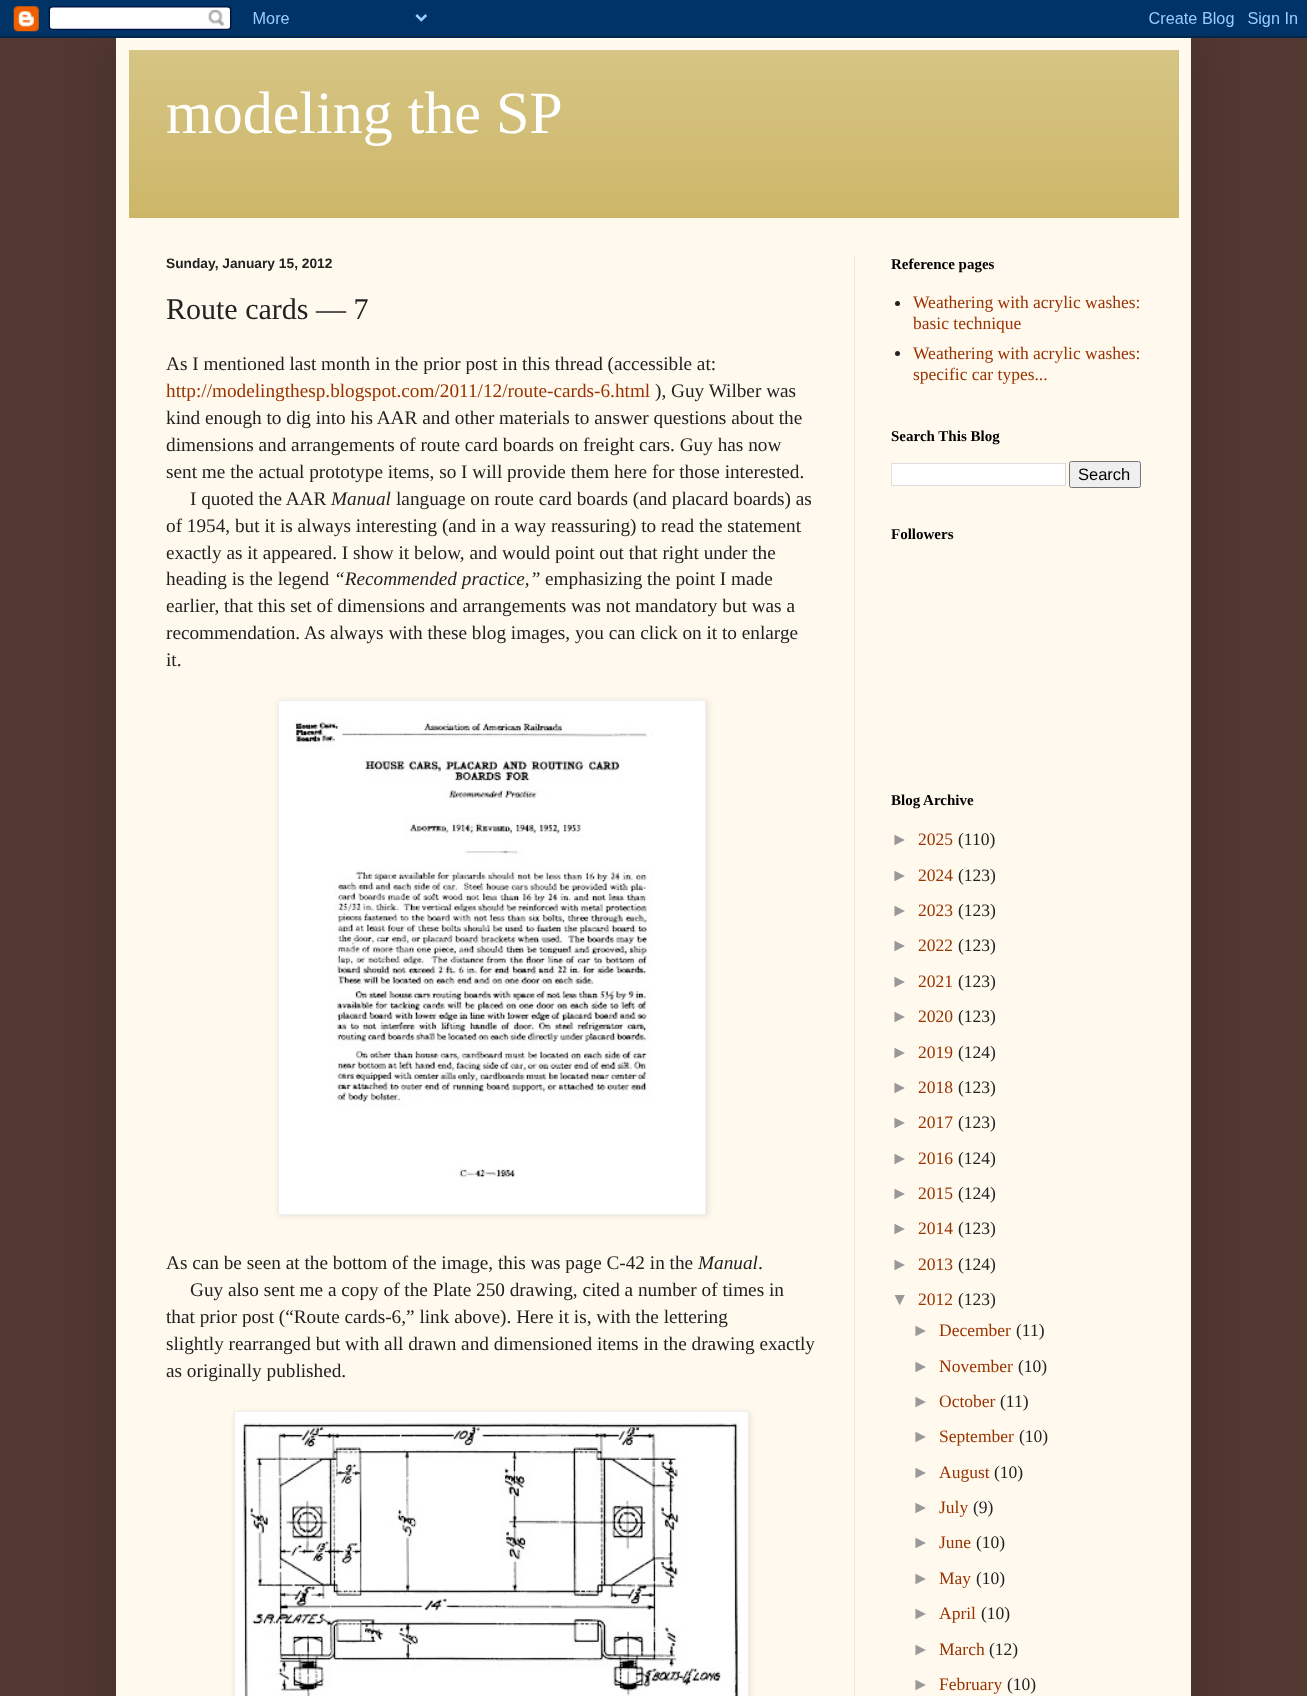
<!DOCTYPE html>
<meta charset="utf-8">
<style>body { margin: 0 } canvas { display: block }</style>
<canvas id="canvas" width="1307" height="1696"></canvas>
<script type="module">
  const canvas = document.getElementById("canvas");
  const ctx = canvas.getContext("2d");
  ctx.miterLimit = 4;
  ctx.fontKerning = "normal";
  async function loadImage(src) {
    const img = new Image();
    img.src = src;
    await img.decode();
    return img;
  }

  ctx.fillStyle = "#513831";
  ctx.fillRect(0, 0, 1307, 1696);
  ctx.fillStyle = "rgba(0, 0, 0, 0.15)";
  ctx.filter = "blur(25px)";
  ctx.beginPath();
  ctx.rect(116, 38, 1075, 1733);
  ctx.fill();
  ctx.filter = "none";
  ctx.drawImage(await loadImage("img1.png"), 0, 0, 1307, 38);
  ctx.fillStyle = "#fff9ee";
  ctx.fillRect(116, 38, 1075, 1658);
  ctx.fillStyle = "#ccb666";
  ctx.fillRect(129, 50, 1050, 168);
  ctx.drawImage(await loadImage("img2.png"), 129, 50, 1050, 163);
  ctx.font = "60px Liberation Serif";
  ctx.fillStyle = "#ffffff";
  ctx.fillText("modeling the SP", 166, 133);
  ctx.fillStyle = "#eee5dd";
  ctx.fillRect(854, 255, 1, 1441);
  ctx.font = "bold 13.75px Liberation Sans";
  ctx.fillStyle = "#222222";
  ctx.fillText("Sunday, January 15, 2012", 166, 268);
  ctx.font = "30px Liberation Serif";
  ctx.fillText("Route cards — 7", 166, 319);
  ctx.font = "19.25px Liberation Serif";
  ctx.fillText("As I mentioned last month in the prior post in this thread (accessible at:", 166, 370);
  ctx.fillStyle = "#993300";
  ctx.fillText("http://modelingthesp.blogspot.com/2011/12/route-cards-6.html", 166, 397);
  ctx.fillStyle = "#222222";
  ctx.fillText("), Guy Wilber was", 655, 397);
  ctx.fillText("kind enough to dig into his AAR and other materials to answer questions about the", 166, 424);
  ctx.fillText("dimensions and arrangements of route card boards on freight cars. Guy has now", 166, 451);
  ctx.fillText("sent me the actual prototype items, so I will provide them here for those interested.", 166, 478);
  ctx.fillText("I quoted the AAR", 190, 505);
  ctx.font = "italic 19.25px Liberation Serif";
  ctx.fillText("Manual", 331, 505);
  ctx.font = "19.25px Liberation Serif";
  ctx.fillText("language on route card boards (and placard boards) as", 396, 505);
  ctx.fillText("of 1954, but it is always interesting (and in a way reassuring) to read the statement", 166, 532);
  ctx.fillText("exactly as it appeared. I show it below, and would point out that right under the", 166, 559);
  ctx.fillText("heading is the legend", 166, 585);
  ctx.font = "italic 19.25px Liberation Serif";
  ctx.fillText("“Recommended practice,”", 334, 585);
  ctx.font = "19.25px Liberation Serif";
  ctx.fillText("emphasizing the point I made", 545, 585);
  ctx.fillText("earlier, that this set of dimensions and arrangements was not mandatory but was a", 166, 612);
  ctx.fillText("recommendation. As always with these blog images, you can click on it to enlarge", 166, 639);
  ctx.fillText("it.", 166, 666);
  ctx.fillStyle = "rgba(0, 0, 0, 0.1)";
  ctx.filter = "blur(3px)";
  ctx.beginPath();
  ctx.rect(279, 701, 429, 515);
  ctx.fill();
  ctx.filter = "none";
  ctx.fillStyle = "#ffffff";
  ctx.beginPath();
  ctx.rect(278.5, 700.5, 427, 514);
  ctx.fill();
  ctx.strokeStyle = "#eeeeee";
  ctx.stroke();
  ctx.drawImage(await loadImage("img3.png"), 295, 718, 358, 460);
  ctx.fillStyle = "#222222";
  ctx.fillText("As can be seen at the bottom of the image, this was page C-42 in the", 166, 1269);
  ctx.font = "italic 19.25px Liberation Serif";
  ctx.fillText("Manual", 698, 1269);
  ctx.font = "19.25px Liberation Serif";
  ctx.fillText(".", 758, 1269);
  ctx.fillText("Guy also sent me a copy of the Plate 250 drawing, cited a number of times in", 190, 1296);
  ctx.fillText("that prior post (“Route cards-6,” link above). Here it is, with the lettering", 166, 1323);
  ctx.fillText("slightly rearranged but with all drawn and dimensioned items in the drawing exactly", 166, 1350);
  ctx.fillText("as originally published.", 166, 1377);
  ctx.fillStyle = "rgba(0, 0, 0, 0.1)";
  ctx.filter = "blur(3px)";
  ctx.beginPath();
  ctx.rect(235, 1413, 515, 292);
  ctx.fill();
  ctx.filter = "none";
  ctx.fillStyle = "#ffffff";
  ctx.beginPath();
  ctx.rect(234.5, 1411.5, 514, 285);
  ctx.fill();
  ctx.stroke();
  ctx.drawImage(await loadImage("img4.png"), 242, 1419, 500, 277);
  ctx.font = "bold 15px Liberation Serif";
  ctx.fillStyle = "#000000";
  ctx.fillText("Reference pages", 891, 269);
  ctx.fillStyle = "#222222";
  ctx.beginPath();
  ctx.arc(897.5, 303.5, 2.5, 0, Math.PI * 2);
  ctx.fill();
  ctx.font = "17.5px Liberation Serif";
  ctx.fillStyle = "#993300";
  ctx.fillText("Weathering with acrylic washes:", 913, 308);
  ctx.fillText("basic technique", 913, 329);
  ctx.fillStyle = "#222222";
  ctx.beginPath();
  ctx.arc(897.5, 353.5, 2.5, 0, Math.PI * 2);
  ctx.fill();
  ctx.fillStyle = "#993300";
  ctx.fillText("Weathering with acrylic washes:", 913, 359);
  ctx.fillText("specific car types...", 913, 380);
  ctx.font = "bold 15px Liberation Serif";
  ctx.fillStyle = "#000000";
  ctx.fillText("Search This Blog", 891, 441);
  ctx.fillStyle = "#ffffff";
  ctx.beginPath();
  ctx.rect(891.5, 463.5, 174, 22);
  ctx.fill();
  ctx.strokeStyle = "#dddddd";
  ctx.stroke();
  ctx.fillStyle = "#efefef";
  ctx.beginPath();
  ctx.roundRect(1069.5, 461.5, 71, 26, 2);
  ctx.fill();
  ctx.strokeStyle = "#767676";
  ctx.stroke();
  ctx.font = "16.5px Liberation Sans";
  ctx.fillStyle = "#000000";
  ctx.fillText("Search", 1078, 480);
  ctx.font = "bold 15px Liberation Serif";
  ctx.fillText("Followers", 891, 539);
  ctx.fillText("Blog Archive", 891, 805);
  ctx.font = "17.5px Liberation Sans";
  ctx.fillStyle = "#999999";
  ctx.fillText("►", 891, 845);
  ctx.font = "17.5px Liberation Serif";
  ctx.fillStyle = "#993300";
  ctx.fillText("2025", 918, 845);
  ctx.fillStyle = "#222222";
  ctx.fillText("(110)", 958, 845);
  ctx.font = "17.5px Liberation Sans";
  ctx.fillStyle = "#999999";
  ctx.fillText("►", 891, 881);
  ctx.font = "17.5px Liberation Serif";
  ctx.fillStyle = "#993300";
  ctx.fillText("2024", 918, 881);
  ctx.fillStyle = "#222222";
  ctx.fillText("(123)", 958, 881);
  ctx.font = "17.5px Liberation Sans";
  ctx.fillStyle = "#999999";
  ctx.fillText("►", 891, 916);
  ctx.font = "17.5px Liberation Serif";
  ctx.fillStyle = "#993300";
  ctx.fillText("2023", 918, 916);
  ctx.fillStyle = "#222222";
  ctx.fillText("(123)", 958, 916);
  ctx.font = "17.5px Liberation Sans";
  ctx.fillStyle = "#999999";
  ctx.fillText("►", 891, 951);
  ctx.font = "17.5px Liberation Serif";
  ctx.fillStyle = "#993300";
  ctx.fillText("2022", 918, 951);
  ctx.fillStyle = "#222222";
  ctx.fillText("(123)", 958, 951);
  ctx.font = "17.5px Liberation Sans";
  ctx.fillStyle = "#999999";
  ctx.fillText("►", 891, 987);
  ctx.font = "17.5px Liberation Serif";
  ctx.fillStyle = "#993300";
  ctx.fillText("2021", 918, 987);
  ctx.fillStyle = "#222222";
  ctx.fillText("(123)", 958, 987);
  ctx.font = "17.5px Liberation Sans";
  ctx.fillStyle = "#999999";
  ctx.fillText("►", 891, 1022);
  ctx.font = "17.5px Liberation Serif";
  ctx.fillStyle = "#993300";
  ctx.fillText("2020", 918, 1022);
  ctx.fillStyle = "#222222";
  ctx.fillText("(123)", 958, 1022);
  ctx.font = "17.5px Liberation Sans";
  ctx.fillStyle = "#999999";
  ctx.fillText("►", 891, 1058);
  ctx.font = "17.5px Liberation Serif";
  ctx.fillStyle = "#993300";
  ctx.fillText("2019", 918, 1058);
  ctx.fillStyle = "#222222";
  ctx.fillText("(124)", 958, 1058);
  ctx.font = "17.5px Liberation Sans";
  ctx.fillStyle = "#999999";
  ctx.fillText("►", 891, 1093);
  ctx.font = "17.5px Liberation Serif";
  ctx.fillStyle = "#993300";
  ctx.fillText("2018", 918, 1093);
  ctx.fillStyle = "#222222";
  ctx.fillText("(123)", 958, 1093);
  ctx.font = "17.5px Liberation Sans";
  ctx.fillStyle = "#999999";
  ctx.fillText("►", 891, 1128);
  ctx.font = "17.5px Liberation Serif";
  ctx.fillStyle = "#993300";
  ctx.fillText("2017", 918, 1128);
  ctx.fillStyle = "#222222";
  ctx.fillText("(123)", 958, 1128);
  ctx.font = "17.5px Liberation Sans";
  ctx.fillStyle = "#999999";
  ctx.fillText("►", 891, 1164);
  ctx.font = "17.5px Liberation Serif";
  ctx.fillStyle = "#993300";
  ctx.fillText("2016", 918, 1164);
  ctx.fillStyle = "#222222";
  ctx.fillText("(124)", 958, 1164);
  ctx.font = "17.5px Liberation Sans";
  ctx.fillStyle = "#999999";
  ctx.fillText("►", 891, 1199);
  ctx.font = "17.5px Liberation Serif";
  ctx.fillStyle = "#993300";
  ctx.fillText("2015", 918, 1199);
  ctx.fillStyle = "#222222";
  ctx.fillText("(124)", 958, 1199);
  ctx.font = "17.5px Liberation Sans";
  ctx.fillStyle = "#999999";
  ctx.fillText("►", 891, 1234);
  ctx.font = "17.5px Liberation Serif";
  ctx.fillStyle = "#993300";
  ctx.fillText("2014", 918, 1234);
  ctx.fillStyle = "#222222";
  ctx.fillText("(123)", 958, 1234);
  ctx.font = "17.5px Liberation Sans";
  ctx.fillStyle = "#999999";
  ctx.fillText("►", 891, 1270);
  ctx.font = "17.5px Liberation Serif";
  ctx.fillStyle = "#993300";
  ctx.fillText("2013", 918, 1270);
  ctx.fillStyle = "#222222";
  ctx.fillText("(124)", 958, 1270);
  ctx.font = "17.5px Liberation Sans";
  ctx.fillStyle = "#999999";
  ctx.fillText("▼", 891, 1305);
  ctx.font = "17.5px Liberation Serif";
  ctx.fillStyle = "#993300";
  ctx.fillText("2012", 918, 1305);
  ctx.fillStyle = "#222222";
  ctx.fillText("(123)", 958, 1305);
  ctx.font = "17.5px Liberation Sans";
  ctx.fillStyle = "#999999";
  ctx.fillText("►", 912, 1336);
  ctx.font = "17.5px Liberation Serif";
  ctx.fillStyle = "#993300";
  ctx.fillText("December", 939, 1336);
  ctx.fillStyle = "#222222";
  ctx.fillText("(11)", 1016, 1336);
  ctx.font = "17.5px Liberation Sans";
  ctx.fillStyle = "#999999";
  ctx.fillText("►", 912, 1372);
  ctx.font = "17.5px Liberation Serif";
  ctx.fillStyle = "#993300";
  ctx.fillText("November", 939, 1372);
  ctx.fillStyle = "#222222";
  ctx.fillText("(10)", 1018, 1372);
  ctx.font = "17.5px Liberation Sans";
  ctx.fillStyle = "#999999";
  ctx.fillText("►", 912, 1407);
  ctx.font = "17.5px Liberation Serif";
  ctx.fillStyle = "#993300";
  ctx.fillText("October", 939, 1407);
  ctx.fillStyle = "#222222";
  ctx.fillText("(11)", 1000, 1407);
  ctx.font = "17.5px Liberation Sans";
  ctx.fillStyle = "#999999";
  ctx.fillText("►", 912, 1442);
  ctx.font = "17.5px Liberation Serif";
  ctx.fillStyle = "#993300";
  ctx.fillText("September", 939, 1442);
  ctx.fillStyle = "#222222";
  ctx.fillText("(10)", 1019, 1442);
  ctx.font = "17.5px Liberation Sans";
  ctx.fillStyle = "#999999";
  ctx.fillText("►", 912, 1478);
  ctx.font = "17.5px Liberation Serif";
  ctx.fillStyle = "#993300";
  ctx.fillText("August", 939, 1478);
  ctx.fillStyle = "#222222";
  ctx.fillText("(10)", 994, 1478);
  ctx.font = "17.5px Liberation Sans";
  ctx.fillStyle = "#999999";
  ctx.fillText("►", 912, 1513);
  ctx.font = "17.5px Liberation Serif";
  ctx.fillStyle = "#993300";
  ctx.fillText("July", 939, 1513);
  ctx.fillStyle = "#222222";
  ctx.fillText("(9)", 973, 1513);
  ctx.font = "17.5px Liberation Sans";
  ctx.fillStyle = "#999999";
  ctx.fillText("►", 912, 1548);
  ctx.font = "17.5px Liberation Serif";
  ctx.fillStyle = "#993300";
  ctx.fillText("June", 939, 1548);
  ctx.fillStyle = "#222222";
  ctx.fillText("(10)", 976, 1548);
  ctx.font = "17.5px Liberation Sans";
  ctx.fillStyle = "#999999";
  ctx.fillText("►", 912, 1584);
  ctx.font = "17.5px Liberation Serif";
  ctx.fillStyle = "#993300";
  ctx.fillText("May", 939, 1584);
  ctx.fillStyle = "#222222";
  ctx.fillText("(10)", 976, 1584);
  ctx.font = "17.5px Liberation Sans";
  ctx.fillStyle = "#999999";
  ctx.fillText("►", 912, 1619);
  ctx.font = "17.5px Liberation Serif";
  ctx.fillStyle = "#993300";
  ctx.fillText("April", 939, 1619);
  ctx.fillStyle = "#222222";
  ctx.fillText("(10)", 981, 1619);
  ctx.font = "17.5px Liberation Sans";
  ctx.fillStyle = "#999999";
  ctx.fillText("►", 912, 1655);
  ctx.font = "17.5px Liberation Serif";
  ctx.fillStyle = "#993300";
  ctx.fillText("March", 939, 1655);
  ctx.fillStyle = "#222222";
  ctx.fillText("(12)", 989, 1655);
  ctx.font = "17.5px Liberation Sans";
  ctx.fillStyle = "#999999";
  ctx.fillText("►", 912, 1690);
  ctx.font = "17.5px Liberation Serif";
  ctx.fillStyle = "#993300";
  ctx.fillText("February", 939, 1690);
  ctx.fillStyle = "#222222";
  ctx.fillText("(10)", 1007, 1690);
</script>
